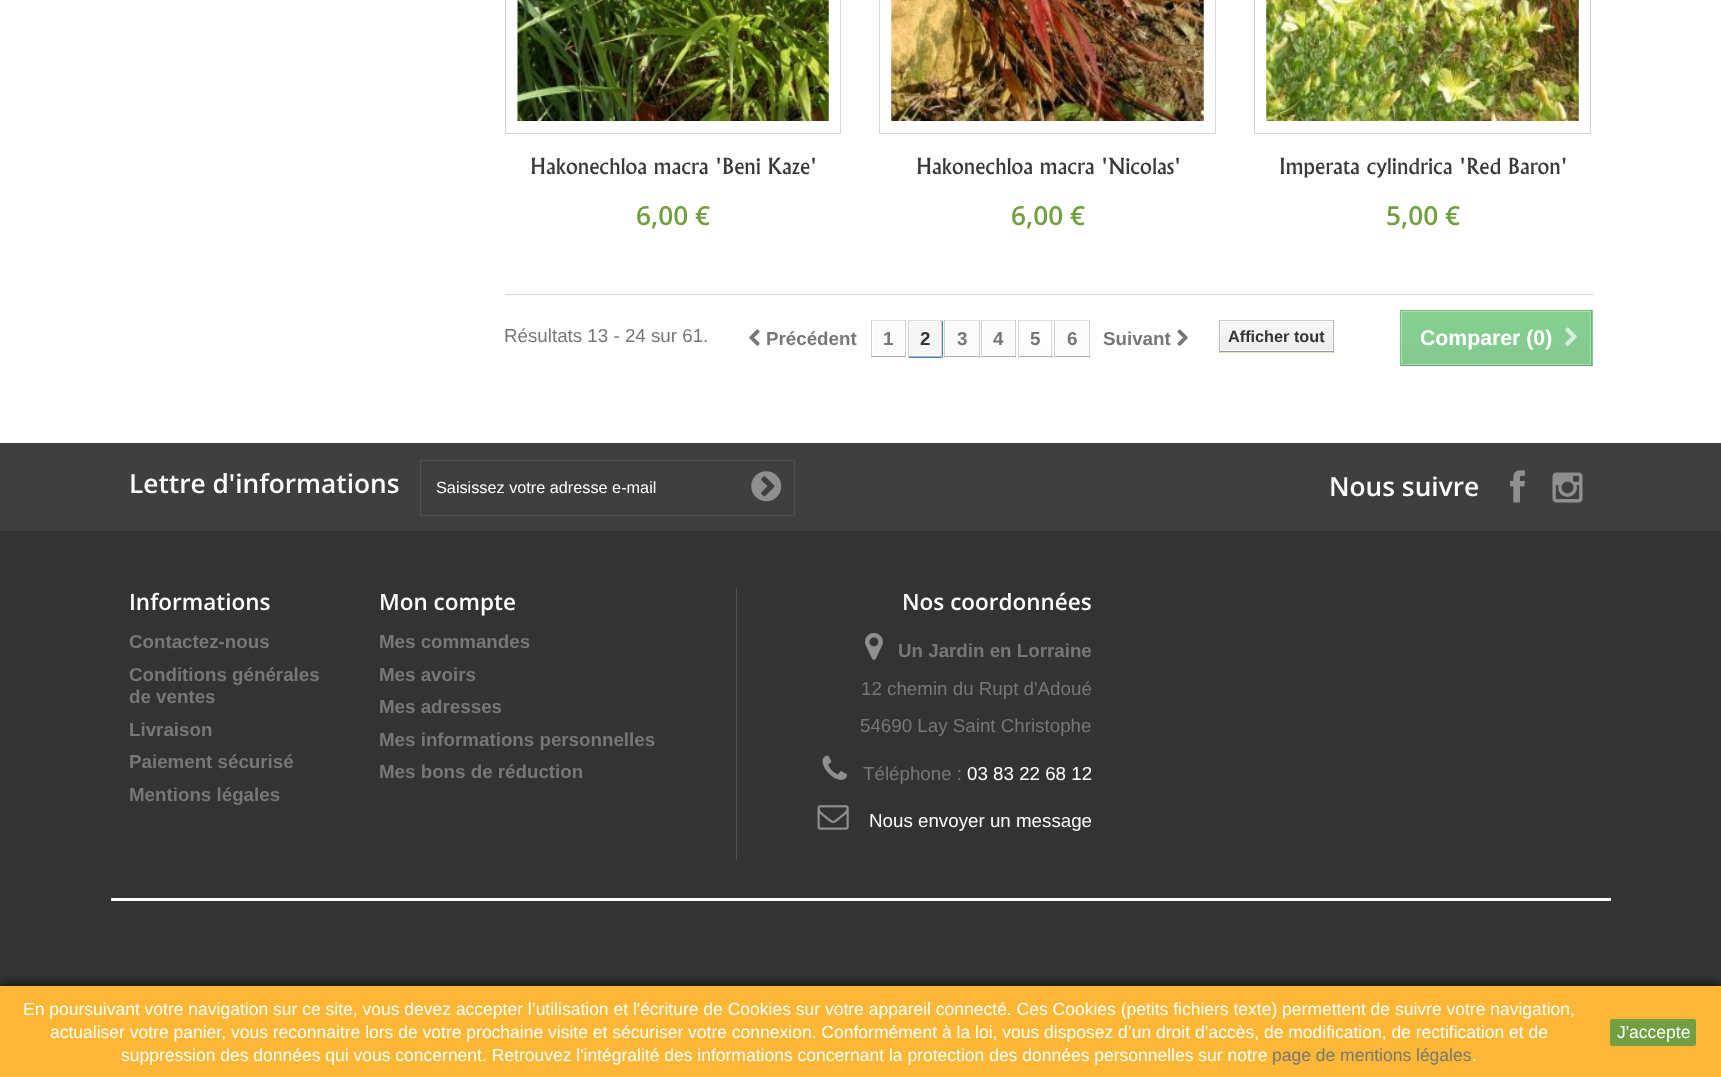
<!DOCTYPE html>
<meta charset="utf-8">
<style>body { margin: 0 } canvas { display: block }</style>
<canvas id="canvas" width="1721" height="1077"></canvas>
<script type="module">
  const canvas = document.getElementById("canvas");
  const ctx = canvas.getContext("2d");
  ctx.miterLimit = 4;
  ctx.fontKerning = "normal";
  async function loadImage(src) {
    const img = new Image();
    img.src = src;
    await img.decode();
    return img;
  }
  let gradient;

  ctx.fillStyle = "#ffffff";
  ctx.fillRect(0, 0, 1721, 1077);
  ctx.strokeStyle = "#d6d4d4";
  ctx.strokeRect(505.5, -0.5, 335, 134);
  ctx.drawImage(await loadImage("img1.png"), 517, 0, 312, 121);
  ctx.font = "500 21.25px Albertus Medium";
  ctx.fillStyle = "#3a3939";
  ctx.fillText("Hakonechloa macra 'Beni Kaze'", 530, 174);
  ctx.font = "600 26.25px Open Sans";
  ctx.fillStyle = "#719f41";
  ctx.fillText("6,00 €", 636, 225);
  ctx.strokeRect(879.5, -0.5, 336, 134);
  ctx.drawImage(await loadImage("img2.png"), 891, 0, 313, 121);
  ctx.font = "500 21.25px Albertus Medium";
  ctx.fillStyle = "#3a3939";
  ctx.fillText("Hakonechloa macra 'Nicolas'", 916, 174);
  ctx.font = "600 26.25px Open Sans";
  ctx.fillStyle = "#719f41";
  ctx.fillText("6,00 €", 1011, 225);
  ctx.strokeRect(1254.5, -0.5, 336, 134);
  ctx.drawImage(await loadImage("img3.png"), 1266, 0, 313, 121);
  ctx.font = "500 21.25px Albertus Medium";
  ctx.fillStyle = "#3a3939";
  ctx.fillText("Imperata cylindrica 'Red Baron'", 1279, 174);
  ctx.font = "600 26.25px Open Sans";
  ctx.fillStyle = "#719f41";
  ctx.fillText("5,00 €", 1386, 225);
  ctx.fillStyle = "#d6d4d4";
  ctx.fillRect(505, 294, 1088, 1);
  ctx.font = "18.75px Liberation Sans";
  ctx.fillStyle = "#777777";
  ctx.fillText("Résultats 13 - 24 sur 61.", 504, 342);
  ctx.drawImage(await loadImage("img4.png"), 749, 329, 11, 17);
  ctx.font = "bold 18.75px Liberation Sans";
  ctx.fillText("Précédent", 766, 345);
  ctx.fillStyle = "#dfdede";
  ctx.fillRect(871, 320, 35, 1);
  ctx.fillStyle = "#d2d0d0";
  ctx.fillRect(905, 320, 1, 38);
  ctx.fillStyle = "#b0afaf";
  ctx.fillRect(871, 356, 35, 1);
  ctx.fillStyle = "#d2d0d0";
  ctx.fillRect(871, 320, 1, 38);
  ctx.fillStyle = "#fbfbfb";
  ctx.fillRect(874, 322, 30, 33);
  ctx.fillStyle = "#777777";
  ctx.fillText("1", 883, 345);
  ctx.fillStyle = "#428bca";
  ctx.fillRect(909, 321, 34, 37);
  ctx.fillStyle = "#dfdede";
  ctx.fillRect(908, 320, 35, 1);
  ctx.fillStyle = "#d2d0d0";
  ctx.fillRect(941, 320, 1, 38);
  ctx.fillStyle = "#b0afaf";
  ctx.fillRect(908, 356, 35, 1);
  ctx.fillStyle = "#d2d0d0";
  ctx.fillRect(908, 320, 1, 38);
  ctx.fillStyle = "#f6f6f6";
  ctx.beginPath();
  ctx.rect(909.5, 321.5, 31, 34);
  ctx.fill();
  ctx.strokeStyle = "#ffffff";
  ctx.stroke();
  ctx.fillStyle = "#333333";
  ctx.fillText("2", 920, 345);
  ctx.fillStyle = "#dfdede";
  ctx.fillRect(944, 320, 36, 1);
  ctx.fillStyle = "#d2d0d0";
  ctx.fillRect(979, 320, 1, 38);
  ctx.fillStyle = "#b0afaf";
  ctx.fillRect(944, 356, 36, 1);
  ctx.fillStyle = "#d2d0d0";
  ctx.fillRect(944, 320, 1, 38);
  ctx.fillStyle = "#fbfbfb";
  ctx.fillRect(946, 322, 32, 33);
  ctx.fillStyle = "#777777";
  ctx.fillText("3", 957, 345);
  ctx.fillStyle = "#dfdede";
  ctx.fillRect(981, 320, 35, 1);
  ctx.fillStyle = "#d2d0d0";
  ctx.fillRect(1015, 320, 1, 38);
  ctx.fillStyle = "#b0afaf";
  ctx.fillRect(981, 356, 35, 1);
  ctx.fillStyle = "#d2d0d0";
  ctx.fillRect(981, 320, 1, 38);
  ctx.fillStyle = "#fbfbfb";
  ctx.fillRect(984, 322, 30, 33);
  ctx.fillStyle = "#777777";
  ctx.fillText("4", 993, 345);
  ctx.fillStyle = "#dfdede";
  ctx.fillRect(1018, 320, 35, 1);
  ctx.fillStyle = "#d2d0d0";
  ctx.fillRect(1051, 320, 1, 38);
  ctx.fillStyle = "#b0afaf";
  ctx.fillRect(1018, 356, 35, 1);
  ctx.fillStyle = "#d2d0d0";
  ctx.fillRect(1018, 320, 1, 38);
  ctx.fillStyle = "#fbfbfb";
  ctx.fillRect(1020, 322, 30, 33);
  ctx.drawImage(await loadImage("img5.png"), 1018, 322, 34, 30);
  ctx.strokeRect(1019.5, 321.5, 31, 34);
  ctx.fillStyle = "#777777";
  ctx.fillText("5", 1030, 345);
  ctx.fillStyle = "#dfdede";
  ctx.fillRect(1054, 320, 36, 1);
  ctx.fillStyle = "#d2d0d0";
  ctx.fillRect(1089, 320, 1, 38);
  ctx.fillStyle = "#b0afaf";
  ctx.fillRect(1054, 356, 36, 1);
  ctx.fillStyle = "#d2d0d0";
  ctx.fillRect(1054, 320, 1, 38);
  ctx.fillStyle = "#fbfbfb";
  ctx.fillRect(1056, 322, 32, 33);
  ctx.fillStyle = "#777777";
  ctx.fillText("6", 1067, 345);
  ctx.fillText("Suivant", 1103, 345);
  ctx.drawImage(await loadImage("img6.png"), 1177, 329, 11, 17);
  ctx.fillStyle = "#d8e8c5";
  ctx.fillRect(1220, 352, 113, 1);
  ctx.fillStyle = "#cacaca";
  ctx.fillRect(1219, 320, 115, 1);
  ctx.fillStyle = "#b7b7b7";
  ctx.fillRect(1333, 320, 1, 33);
  ctx.fillStyle = "#9a9a9a";
  ctx.fillRect(1219, 351, 115, 1);
  ctx.fillStyle = "#b7b7b7";
  ctx.fillRect(1219, 320, 1, 33);
  gradient = ctx.createLinearGradient(1276, 295, 1276, 323);
  gradient.addColorStop(0, "#f7f7f7");
  gradient.addColorStop(1, "#ededed");
  ctx.fillStyle = gradient;
  ctx.fillRect(1220, 322, 113, 1);
  gradient = ctx.createLinearGradient(1276, 323, 1276, 350);
  gradient.addColorStop(0, "#f7f7f7");
  gradient.addColorStop(1, "#ededed");
  ctx.fillStyle = gradient;
  ctx.fillRect(1221, 323, 111, 27);
  ctx.strokeRect(1220.5, 321.5, 112, 29);
  ctx.font = "bold 16.25px Liberation Sans";
  ctx.fillStyle = "#333333";
  ctx.fillText("Afficher tout", 1228, 342);
  gradient = ctx.createLinearGradient(1496, 311, 1496, 365);
  gradient.addColorStop(0, "#85d090");
  gradient.addColorStop(0.02, "#84d092");
  gradient.addColorStop(0.04, "#84d190");
  gradient.addColorStop(0.06, "#85d091");
  gradient.addColorStop(0.38, "#84ce90");
  gradient.addColorStop(0.4, "#85ce91");
  gradient.addColorStop(0.66, "#86cb91");
  gradient.addColorStop(0.74, "#84ca8f");
  gradient.addColorStop(0.91, "#84c98f");
  gradient.addColorStop(0.94, "#84ca91");
  gradient.addColorStop(0.96, "#85c890");
  gradient.addColorStop(1, "#84c98f");
  ctx.fillStyle = gradient;
  ctx.fillRect(1402, 311, 191, 54);
  ctx.fillStyle = "#7ebd89";
  ctx.fillRect(1400, 310, 193, 1);
  ctx.fillStyle = "#71ac7a";
  ctx.fillRect(1591, 310, 1, 56);
  ctx.fillStyle = "#6aa073";
  ctx.fillRect(1400, 365, 193, 1);
  ctx.fillStyle = "#7ebd89";
  ctx.fillRect(1400, 310, 1, 56);
  ctx.strokeStyle = "#a5e4a7";
  ctx.strokeRect(1401.5, 311.5, 189, 53);
  ctx.font = "bold 21.25px Liberation Sans";
  ctx.fillStyle = "#ffffff";
  ctx.fillText("Comparer (0)", 1420, 345);
  ctx.drawImage(await loadImage("img7.png"), 1565, 327, 12, 19);
  ctx.fillStyle = "#333333";
  ctx.fillRect(0, 531, 1721, 455);
  ctx.fillStyle = "#3f3f3f";
  ctx.fillRect(0, 443, 1721, 88);
  ctx.font = "600 26.25px Open Sans";
  ctx.fillStyle = "#ffffff";
  ctx.fillText("Lettre d'informations", 129, 493);
  ctx.strokeStyle = "#515151";
  ctx.strokeRect(420.5, 460.5, 374, 55);
  ctx.font = "16.25px Liberation Sans";
  ctx.fillText("Saisissez votre adresse e-mail", 436, 493);
  ctx.drawImage(await loadImage("img8.png"), 751, 471, 31, 31);
  ctx.font = "600 26.25px Open Sans";
  ctx.fillText("Nous suivre", 1329, 496);
  ctx.drawImage(await loadImage("img9.png"), 1510, 470, 15, 33);
  ctx.drawImage(await loadImage("img10.png"), 1552, 472, 31, 31);
  ctx.font = "600 22.5px Open Sans";
  ctx.fillText("Informations", 129, 610);
  ctx.font = "bold 18.75px Liberation Sans";
  ctx.fillStyle = "#777777";
  ctx.fillText("Contactez-nous", 129, 648);
  ctx.fillText("Conditions générales", 129, 681);
  ctx.fillText("de ventes", 129, 703);
  ctx.fillText("Livraison", 129, 736);
  ctx.fillText("Paiement sécurisé", 129, 768);
  ctx.fillText("Mentions légales", 129, 801);
  ctx.font = "600 22.5px Open Sans";
  ctx.fillStyle = "#ffffff";
  ctx.fillText("Mon compte", 379, 610);
  ctx.font = "bold 18.75px Liberation Sans";
  ctx.fillStyle = "#777777";
  ctx.fillText("Mes commandes", 379, 648);
  ctx.fillText("Mes avoirs", 379, 681);
  ctx.fillText("Mes adresses", 379, 713);
  ctx.fillText("Mes informations personnelles", 379, 746);
  ctx.fillText("Mes bons de réduction", 379, 778);
  ctx.fillStyle = "#515151";
  ctx.fillRect(736, 588, 1, 272);
  ctx.font = "600 22.5px Open Sans";
  ctx.fillStyle = "#ffffff";
  ctx.fillText("Nos coordonnées", 902, 610);
  ctx.drawImage(await loadImage("img11.png"), 865, 633, 18, 27);
  ctx.font = "bold 18.75px Liberation Sans";
  ctx.fillStyle = "#777777";
  ctx.fillText("Un Jardin en Lorraine", 898, 657);
  ctx.font = "18.75px Liberation Sans";
  ctx.fillText("12 chemin du Rupt d'Adoué", 861, 695);
  ctx.fillText("54690 Lay Saint Christophe", 860, 732);
  ctx.drawImage(await loadImage("img12.png"), 822, 755, 25, 25);
  ctx.fillText("Téléphone :", 863, 780);
  ctx.fillStyle = "#ffffff";
  ctx.fillText("03 83 22 68 12", 967, 780);
  ctx.drawImage(await loadImage("img13.png"), 817, 805, 32, 25);
  ctx.fillText("Nous envoyer un message", 869, 827);
  ctx.fillRect(111, 898, 1500, 3);
  ctx.fillStyle = "#000000";
  ctx.filter = "blur(6px)";
  ctx.beginPath();
  ctx.rect(0, 986, 1721, 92);
  ctx.fill();
  ctx.filter = "none";
  ctx.fillStyle = "#fcb736";
  ctx.fillRect(0, 986, 1721, 91);
  ctx.font = "17.5px Liberation Sans";
  ctx.fillStyle = "#ffffff";
  ctx.fillText("En poursuivant votre navigation sur ce site, vous devez accepter l’utilisation et l'écriture de Cookies sur votre appareil connecté. Ces Cookies (petits fichiers texte) permettent de suivre votre navigation,", 23, 1015);
  ctx.fillText("actualiser votre panier, vous reconnaitre lors de votre prochaine visite et sécuriser votre connexion. Conformément à la loi, vous disposez d’un droit d’accès, de modification, de rectification et de", 50, 1038);
  ctx.fillText("suppression des données qui vous concernent. Retrouvez l'intégralité des informations concernant la protection des données personnelles sur notre", 121, 1061);
  ctx.fillStyle = "#777777";
  ctx.fillText("page de mentions légales", 1272, 1061);
  ctx.fillStyle = "#ffffff";
  ctx.fillText(".", 1472, 1061);
  ctx.fillStyle = "#719f41";
  ctx.beginPath();
  ctx.roundRect(1610, 1019, 86, 27, 2.5);
  ctx.fill();
  ctx.fillStyle = "#ffffff";
  ctx.fillText("J'accepte", 1617, 1038);
</script>
